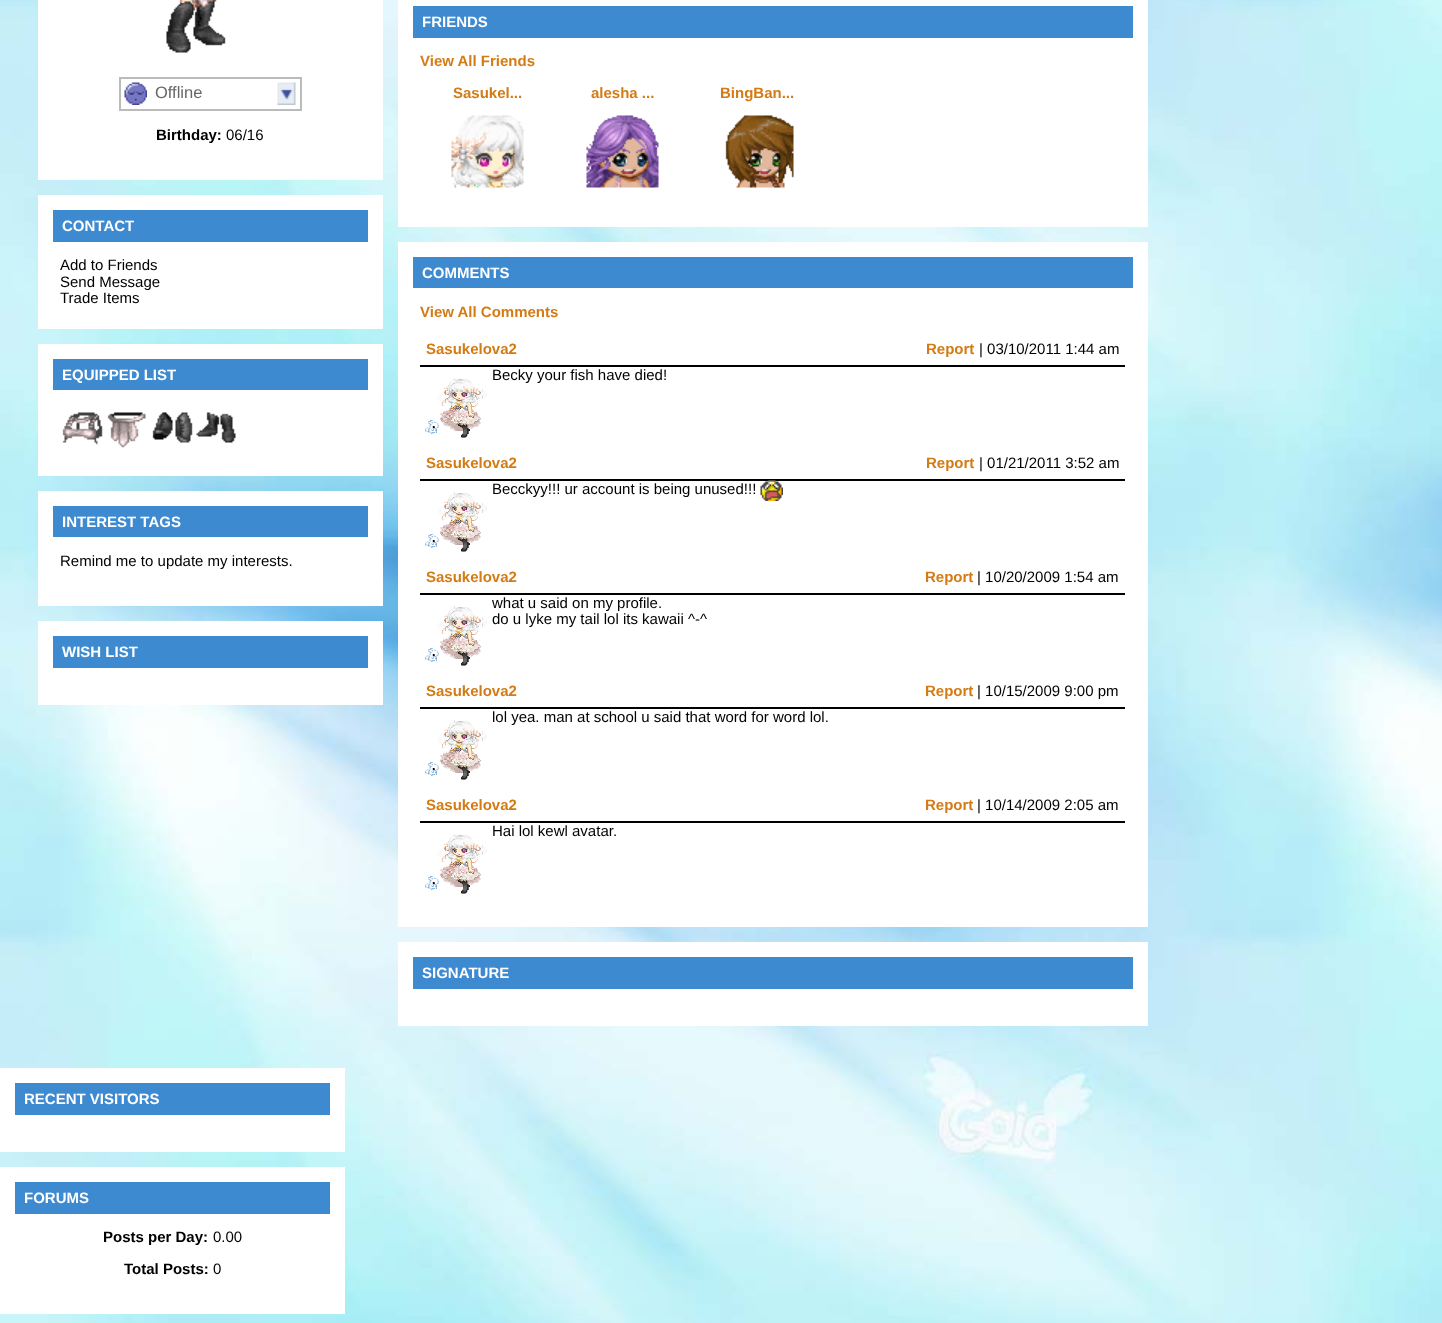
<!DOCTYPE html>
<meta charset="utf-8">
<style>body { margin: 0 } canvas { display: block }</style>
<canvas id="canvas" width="1442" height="1323"></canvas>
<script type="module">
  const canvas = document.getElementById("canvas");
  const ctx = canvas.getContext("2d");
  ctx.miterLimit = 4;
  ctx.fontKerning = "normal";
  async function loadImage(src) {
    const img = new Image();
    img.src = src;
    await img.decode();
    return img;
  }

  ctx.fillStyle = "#ffffff";
  ctx.fillRect(0, 0, 1442, 1323);
  ctx.drawImage(await loadImage("img1.png"), 0, 0, 1442, 1323);
  ctx.fillRect(38, 0, 345, 180);
  ctx.drawImage(await loadImage("img2.png"), 166, 0, 60, 53);
  ctx.strokeStyle = "#bbbbbb";
  ctx.lineWidth = 2;
  ctx.strokeRect(120, 78, 181, 32);
  ctx.drawImage(await loadImage("img3.png"), 277, 82, 19, 23);
  ctx.drawImage(await loadImage("img4.png"), 124, 82, 23, 23);
  ctx.font = "16.5px Liberation Sans";
  ctx.fillStyle = "#666666";
  ctx.fillText("Offline", 155, 98);
  ctx.font = "bold 15px Liberation Sans";
  ctx.fillStyle = "#000000";
  ctx.fillText("Birthday:", 156, 140);
  ctx.font = "15px Liberation Sans";
  ctx.fillText("06/16", 226, 140);
  ctx.fillStyle = "#ffffff";
  ctx.fillRect(38, 195, 345, 134);
  ctx.fillStyle = "#3d8ad0";
  ctx.fillRect(53, 210, 315, 32);
  ctx.font = "bold 15px Liberation Sans";
  ctx.fillStyle = "#ffffff";
  ctx.fillText("CONTACT", 62, 231);
  ctx.font = "15px Liberation Sans";
  ctx.fillStyle = "#000000";
  ctx.fillText("Add to Friends", 60, 270);
  ctx.fillText("Send Message", 60, 287);
  ctx.fillText("Trade Items", 60, 303);
  ctx.fillStyle = "#ffffff";
  ctx.fillRect(38, 344, 345, 132);
  ctx.fillStyle = "#3d8ad0";
  ctx.fillRect(53, 359, 315, 31);
  ctx.font = "bold 15px Liberation Sans";
  ctx.fillStyle = "#ffffff";
  ctx.fillText("EQUIPPED LIST", 62, 380);
  ctx.drawImage(await loadImage("img5.png"), 62, 412, 41, 33);
  ctx.drawImage(await loadImage("img6.png"), 107, 412, 39, 36);
  ctx.drawImage(await loadImage("img7.png"), 152, 412, 41, 31);
  ctx.drawImage(await loadImage("img8.png"), 196, 412, 40, 31);
  ctx.fillRect(38, 491, 345, 115);
  ctx.fillStyle = "#3d8ad0";
  ctx.fillRect(53, 506, 315, 31);
  ctx.fillStyle = "#ffffff";
  ctx.fillText("INTEREST TAGS", 62, 527);
  ctx.font = "15px Liberation Sans";
  ctx.fillStyle = "#000000";
  ctx.fillText("Remind me to update my interests.", 60, 566);
  ctx.fillStyle = "#ffffff";
  ctx.fillRect(38, 621, 345, 84);
  ctx.fillStyle = "#3d8ad0";
  ctx.fillRect(53, 636, 315, 32);
  ctx.font = "bold 15px Liberation Sans";
  ctx.fillStyle = "#ffffff";
  ctx.fillText("WISH LIST", 62, 657);
  ctx.fillRect(398, 0, 750, 227);
  ctx.fillStyle = "#3d8ad0";
  ctx.fillRect(413, 6, 720, 32);
  ctx.fillStyle = "#ffffff";
  ctx.fillText("FRIENDS", 422, 27);
  ctx.fillStyle = "#d37b14";
  ctx.fillText("View All Friends", 420, 66);
  ctx.fillText("Sasukel...", 453, 98);
  ctx.drawImage(await loadImage("img9.png"), 451, 115, 73, 73);
  ctx.fillText("alesha ...", 591, 98);
  ctx.drawImage(await loadImage("img10.png"), 586, 115, 73, 73);
  ctx.fillText("BingBan...", 720, 98);
  ctx.drawImage(await loadImage("img11.png"), 725, 115, 69, 73);
  ctx.fillStyle = "#ffffff";
  ctx.fillRect(398, 242, 750, 685);
  ctx.fillStyle = "#3d8ad0";
  ctx.fillRect(413, 257, 720, 31);
  ctx.fillStyle = "#ffffff";
  ctx.fillText("COMMENTS", 422, 278);
  ctx.fillStyle = "#d37b14";
  ctx.fillText("View All Comments", 420, 317);
  ctx.fillStyle = "#000000";
  ctx.fillRect(420, 365, 705, 2);
  ctx.fillStyle = "#d37b14";
  ctx.fillText("Sasukelova2", 426, 354);
  ctx.fillText("Report", 926, 354);
  ctx.font = "15px Liberation Sans";
  ctx.fillStyle = "#000000";
  ctx.fillText("| 03/10/2011 1:44 am", 979, 354);
  ctx.fillText("Becky your fish have died!", 492, 380);
  ctx.drawImage(await loadImage("img12.png"), 425, 378, 62, 60);
  ctx.fillRect(420, 479, 705, 2);
  ctx.font = "bold 15px Liberation Sans";
  ctx.fillStyle = "#d37b14";
  ctx.fillText("Sasukelova2", 426, 468);
  ctx.fillText("Report", 926, 468);
  ctx.font = "15px Liberation Sans";
  ctx.fillStyle = "#000000";
  ctx.fillText("| 01/21/2011 3:52 am", 979, 468);
  ctx.fillText("Becckyy!!! ur account is being unused!!!", 492, 494);
  ctx.drawImage(await loadImage("img13.png"), 760, 480, 23, 21);
  ctx.drawImage(await loadImage("img12.png"), 425, 492, 62, 60);
  ctx.fillRect(420, 593, 705, 2);
  ctx.font = "bold 15px Liberation Sans";
  ctx.fillStyle = "#d37b14";
  ctx.fillText("Sasukelova2", 426, 582);
  ctx.fillText("Report", 925, 582);
  ctx.font = "15px Liberation Sans";
  ctx.fillStyle = "#000000";
  ctx.fillText("| 10/20/2009 1:54 am", 977, 582);
  ctx.drawImage(await loadImage("img12.png"), 425, 606, 62, 60);
  ctx.fillText("what u said on my profile.", 492, 608);
  ctx.fillText("do u lyke my tail lol its kawaii ^-^", 492, 624);
  ctx.fillRect(420, 707, 705, 2);
  ctx.font = "bold 15px Liberation Sans";
  ctx.fillStyle = "#d37b14";
  ctx.fillText("Sasukelova2", 426, 696);
  ctx.fillText("Report", 925, 696);
  ctx.font = "15px Liberation Sans";
  ctx.fillStyle = "#000000";
  ctx.fillText("| 10/15/2009 9:00 pm", 977, 696);
  ctx.fillText("lol yea. man at school u said that word for word lol.", 492, 722);
  ctx.drawImage(await loadImage("img12.png"), 425, 720, 62, 60);
  ctx.fillRect(420, 821, 705, 2);
  ctx.font = "bold 15px Liberation Sans";
  ctx.fillStyle = "#d37b14";
  ctx.fillText("Sasukelova2", 426, 810);
  ctx.fillText("Report", 925, 810);
  ctx.font = "15px Liberation Sans";
  ctx.fillStyle = "#000000";
  ctx.fillText("| 10/14/2009 2:05 am", 977, 810);
  ctx.fillText("Hai lol kewl avatar.", 492, 836);
  ctx.drawImage(await loadImage("img12.png"), 425, 834, 62, 60);
  ctx.fillStyle = "#ffffff";
  ctx.fillRect(398, 942, 750, 84);
  ctx.fillStyle = "#3d8ad0";
  ctx.fillRect(413, 957, 720, 32);
  ctx.font = "bold 15px Liberation Sans";
  ctx.fillStyle = "#ffffff";
  ctx.fillText("SIGNATURE", 422, 978);
  ctx.fillRect(0, 1068, 345, 84);
  ctx.fillStyle = "#3d8ad0";
  ctx.fillRect(15, 1083, 315, 32);
  ctx.fillStyle = "#ffffff";
  ctx.fillText("RECENT VISITORS", 24, 1104);
  ctx.fillRect(0, 1167, 345, 147);
  ctx.fillStyle = "#3d8ad0";
  ctx.fillRect(15, 1182, 315, 32);
  ctx.fillStyle = "#ffffff";
  ctx.fillText("FORUMS", 24, 1203);
  ctx.fillStyle = "#000000";
  ctx.fillText("Posts per Day:", 103, 1242);
  ctx.font = "15px Liberation Sans";
  ctx.fillText("0.00", 213, 1242);
  ctx.font = "bold 15px Liberation Sans";
  ctx.fillText("Total Posts:", 124, 1274);
  ctx.font = "15px Liberation Sans";
  ctx.fillText("0", 213, 1274);
</script>
